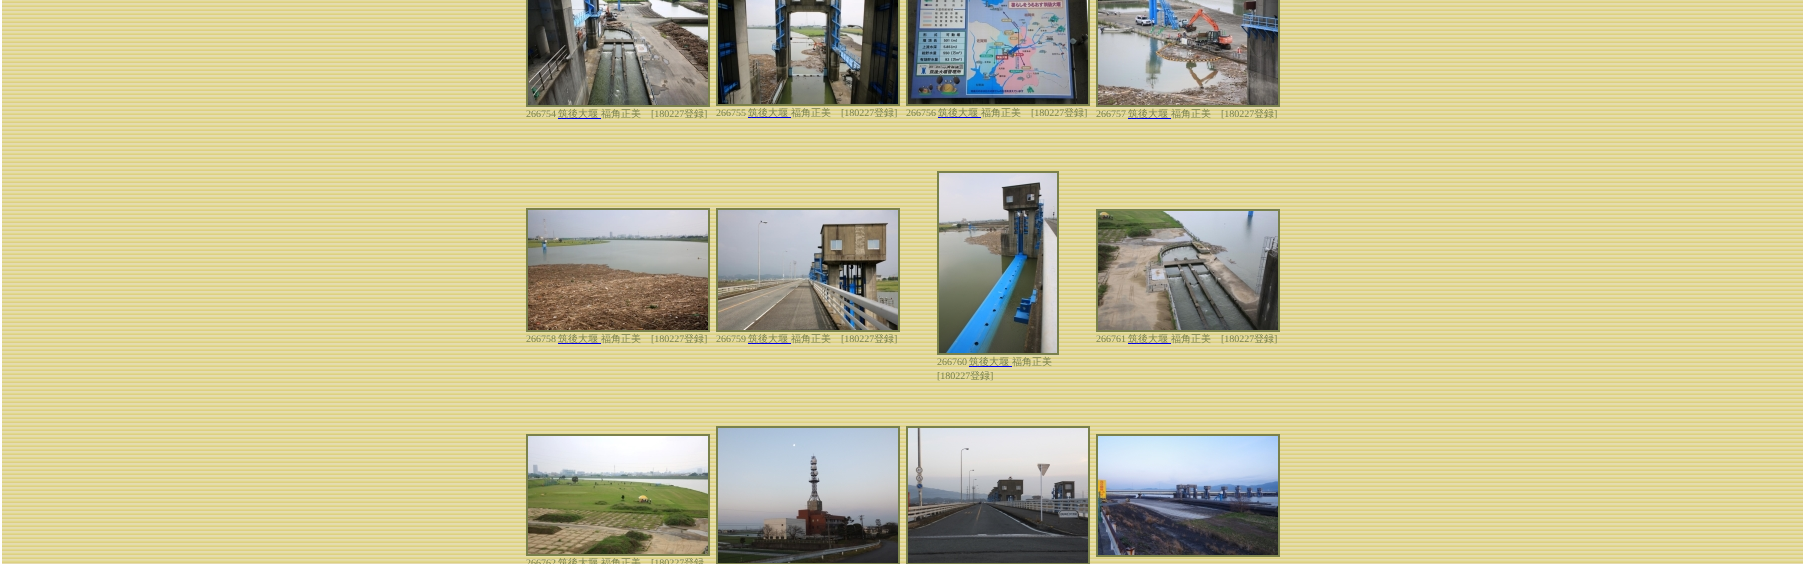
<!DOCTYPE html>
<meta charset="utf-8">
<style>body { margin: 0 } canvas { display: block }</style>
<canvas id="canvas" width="1805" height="564"></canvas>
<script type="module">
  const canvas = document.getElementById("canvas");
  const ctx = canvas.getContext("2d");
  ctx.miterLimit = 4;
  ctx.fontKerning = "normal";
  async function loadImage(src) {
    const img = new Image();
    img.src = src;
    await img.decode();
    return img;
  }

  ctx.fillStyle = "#ffffff";
  ctx.fillRect(0, 0, 1805, 564);
  ctx.drawImage(await loadImage("img1.png"), 2, 0, 1801, 564);
  ctx.strokeStyle = "#7a814c";
  ctx.lineWidth = 2;
  ctx.strokeRect(527, -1, 182, 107);
  ctx.drawImage(await loadImage("img2.png"), 528, 0, 180, 105);
  ctx.font = "10px Liberation Serif";
  ctx.fillStyle = "#7a814c";
  ctx.fillText("266754", 526, 117);
  ctx.fillStyle = "#0000ee";
  ctx.fillRect(558, 118, 43, 1);
  ctx.font = "500 10px WenQuanYi Zen Hei";
  ctx.fillStyle = "#7a814c";
  ctx.fillText("筑後大堰", 558, 117);
  ctx.fillText("福角正美", 601, 117);
  ctx.font = "10px Liberation Serif";
  ctx.fillText("[180227", 651, 117);
  ctx.font = "500 10px WenQuanYi Zen Hei";
  ctx.fillText("登録", 684, 117);
  ctx.font = "10px Liberation Serif";
  ctx.fillText("]", 704, 117);
  ctx.strokeRect(717, -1, 182, 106);
  ctx.drawImage(await loadImage("img3.png"), 718, 0, 180, 104);
  ctx.fillText("266755", 716, 116);
  ctx.fillStyle = "#0000ee";
  ctx.fillRect(748, 117, 43, 1);
  ctx.font = "500 10px WenQuanYi Zen Hei";
  ctx.fillStyle = "#7a814c";
  ctx.fillText("筑後大堰", 748, 116);
  ctx.fillText("福角正美", 791, 116);
  ctx.font = "10px Liberation Serif";
  ctx.fillText("[180227", 841, 116);
  ctx.font = "500 10px WenQuanYi Zen Hei";
  ctx.fillText("登録", 874, 116);
  ctx.font = "10px Liberation Serif";
  ctx.fillText("]", 894, 116);
  ctx.strokeRect(907, -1, 182, 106);
  ctx.drawImage(await loadImage("img4.png"), 908, 0, 180, 104);
  ctx.fillText("266756", 906, 116);
  ctx.fillStyle = "#0000ee";
  ctx.fillRect(938, 117, 43, 1);
  ctx.font = "500 10px WenQuanYi Zen Hei";
  ctx.fillStyle = "#7a814c";
  ctx.fillText("筑後大堰", 938, 116);
  ctx.fillText("福角正美", 981, 116);
  ctx.font = "10px Liberation Serif";
  ctx.fillText("[180227", 1031, 116);
  ctx.font = "500 10px WenQuanYi Zen Hei";
  ctx.fillText("登録", 1064, 116);
  ctx.font = "10px Liberation Serif";
  ctx.fillText("]", 1084, 116);
  ctx.strokeRect(1097, -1, 182, 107);
  ctx.drawImage(await loadImage("img5.png"), 1098, 0, 180, 105);
  ctx.fillText("266757", 1096, 117);
  ctx.fillStyle = "#0000ee";
  ctx.fillRect(1128, 118, 43, 1);
  ctx.font = "500 10px WenQuanYi Zen Hei";
  ctx.fillStyle = "#7a814c";
  ctx.fillText("筑後大堰", 1128, 117);
  ctx.fillText("福角正美", 1171, 117);
  ctx.font = "10px Liberation Serif";
  ctx.fillText("[180227", 1221, 117);
  ctx.font = "500 10px WenQuanYi Zen Hei";
  ctx.fillText("登録", 1254, 117);
  ctx.font = "10px Liberation Serif";
  ctx.fillText("]", 1274, 117);
  ctx.strokeRect(527, 209, 182, 122);
  ctx.drawImage(await loadImage("img6.png"), 528, 210, 180, 120);
  ctx.fillText("266758", 526, 342);
  ctx.fillStyle = "#0000ee";
  ctx.fillRect(558, 343, 43, 1);
  ctx.font = "500 10px WenQuanYi Zen Hei";
  ctx.fillStyle = "#7a814c";
  ctx.fillText("筑後大堰", 558, 342);
  ctx.fillText("福角正美", 601, 342);
  ctx.font = "10px Liberation Serif";
  ctx.fillText("[180227", 651, 342);
  ctx.font = "500 10px WenQuanYi Zen Hei";
  ctx.fillText("登録", 684, 342);
  ctx.font = "10px Liberation Serif";
  ctx.fillText("]", 704, 342);
  ctx.strokeRect(717, 209, 182, 122);
  ctx.drawImage(await loadImage("img7.png"), 718, 210, 180, 120);
  ctx.fillText("266759", 716, 342);
  ctx.fillStyle = "#0000ee";
  ctx.fillRect(748, 343, 43, 1);
  ctx.font = "500 10px WenQuanYi Zen Hei";
  ctx.fillStyle = "#7a814c";
  ctx.fillText("筑後大堰", 748, 342);
  ctx.fillText("福角正美", 791, 342);
  ctx.font = "10px Liberation Serif";
  ctx.fillText("[180227", 841, 342);
  ctx.font = "500 10px WenQuanYi Zen Hei";
  ctx.fillText("登録", 874, 342);
  ctx.font = "10px Liberation Serif";
  ctx.fillText("]", 894, 342);
  ctx.strokeRect(1097, 210, 182, 121);
  ctx.drawImage(await loadImage("img8.png"), 1098, 211, 180, 119);
  ctx.fillText("266761", 1096, 342);
  ctx.fillStyle = "#0000ee";
  ctx.fillRect(1128, 343, 43, 1);
  ctx.font = "500 10px WenQuanYi Zen Hei";
  ctx.fillStyle = "#7a814c";
  ctx.fillText("筑後大堰", 1128, 342);
  ctx.fillText("福角正美", 1171, 342);
  ctx.font = "10px Liberation Serif";
  ctx.fillText("[180227", 1221, 342);
  ctx.font = "500 10px WenQuanYi Zen Hei";
  ctx.fillText("登録", 1254, 342);
  ctx.font = "10px Liberation Serif";
  ctx.fillText("]", 1274, 342);
  ctx.strokeRect(938, 172, 120, 182);
  ctx.drawImage(await loadImage("img9.png"), 939, 173, 118, 180);
  ctx.fillText("266760", 937, 365);
  ctx.fillStyle = "#0000ee";
  ctx.fillRect(969, 366, 43, 1);
  ctx.font = "500 10px WenQuanYi Zen Hei";
  ctx.fillStyle = "#7a814c";
  ctx.fillText("筑後大堰", 969, 365);
  ctx.fillText("福角正美", 1012, 365);
  ctx.font = "10px Liberation Serif";
  ctx.fillText("[180227", 937, 379);
  ctx.font = "500 10px WenQuanYi Zen Hei";
  ctx.fillText("登録", 970, 379);
  ctx.font = "10px Liberation Serif";
  ctx.fillText("]", 990, 379);
  ctx.strokeRect(717, 427, 182, 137);
  ctx.drawImage(await loadImage("img10.png"), 718, 428, 180, 135);
  ctx.strokeRect(907, 427, 182, 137);
  ctx.drawImage(await loadImage("img11.png"), 908, 428, 180, 135);
  ctx.strokeRect(1097, 435, 182, 121);
  ctx.drawImage(await loadImage("img12.png"), 1098, 436, 180, 119);
  ctx.strokeRect(527, 435, 182, 120);
  ctx.drawImage(await loadImage("img13.png"), 528, 436, 180, 118);
  ctx.fillText("266762", 526, 566);
  ctx.font = "500 10px WenQuanYi Zen Hei";
  ctx.fillText("筑後大堰", 558, 566);
  ctx.fillText("福角正美", 601, 566);
  ctx.font = "10px Liberation Serif";
  ctx.fillText("[180227", 651, 566);
  ctx.font = "500 10px WenQuanYi Zen Hei";
  ctx.fillText("登録", 684, 566);
</script>
